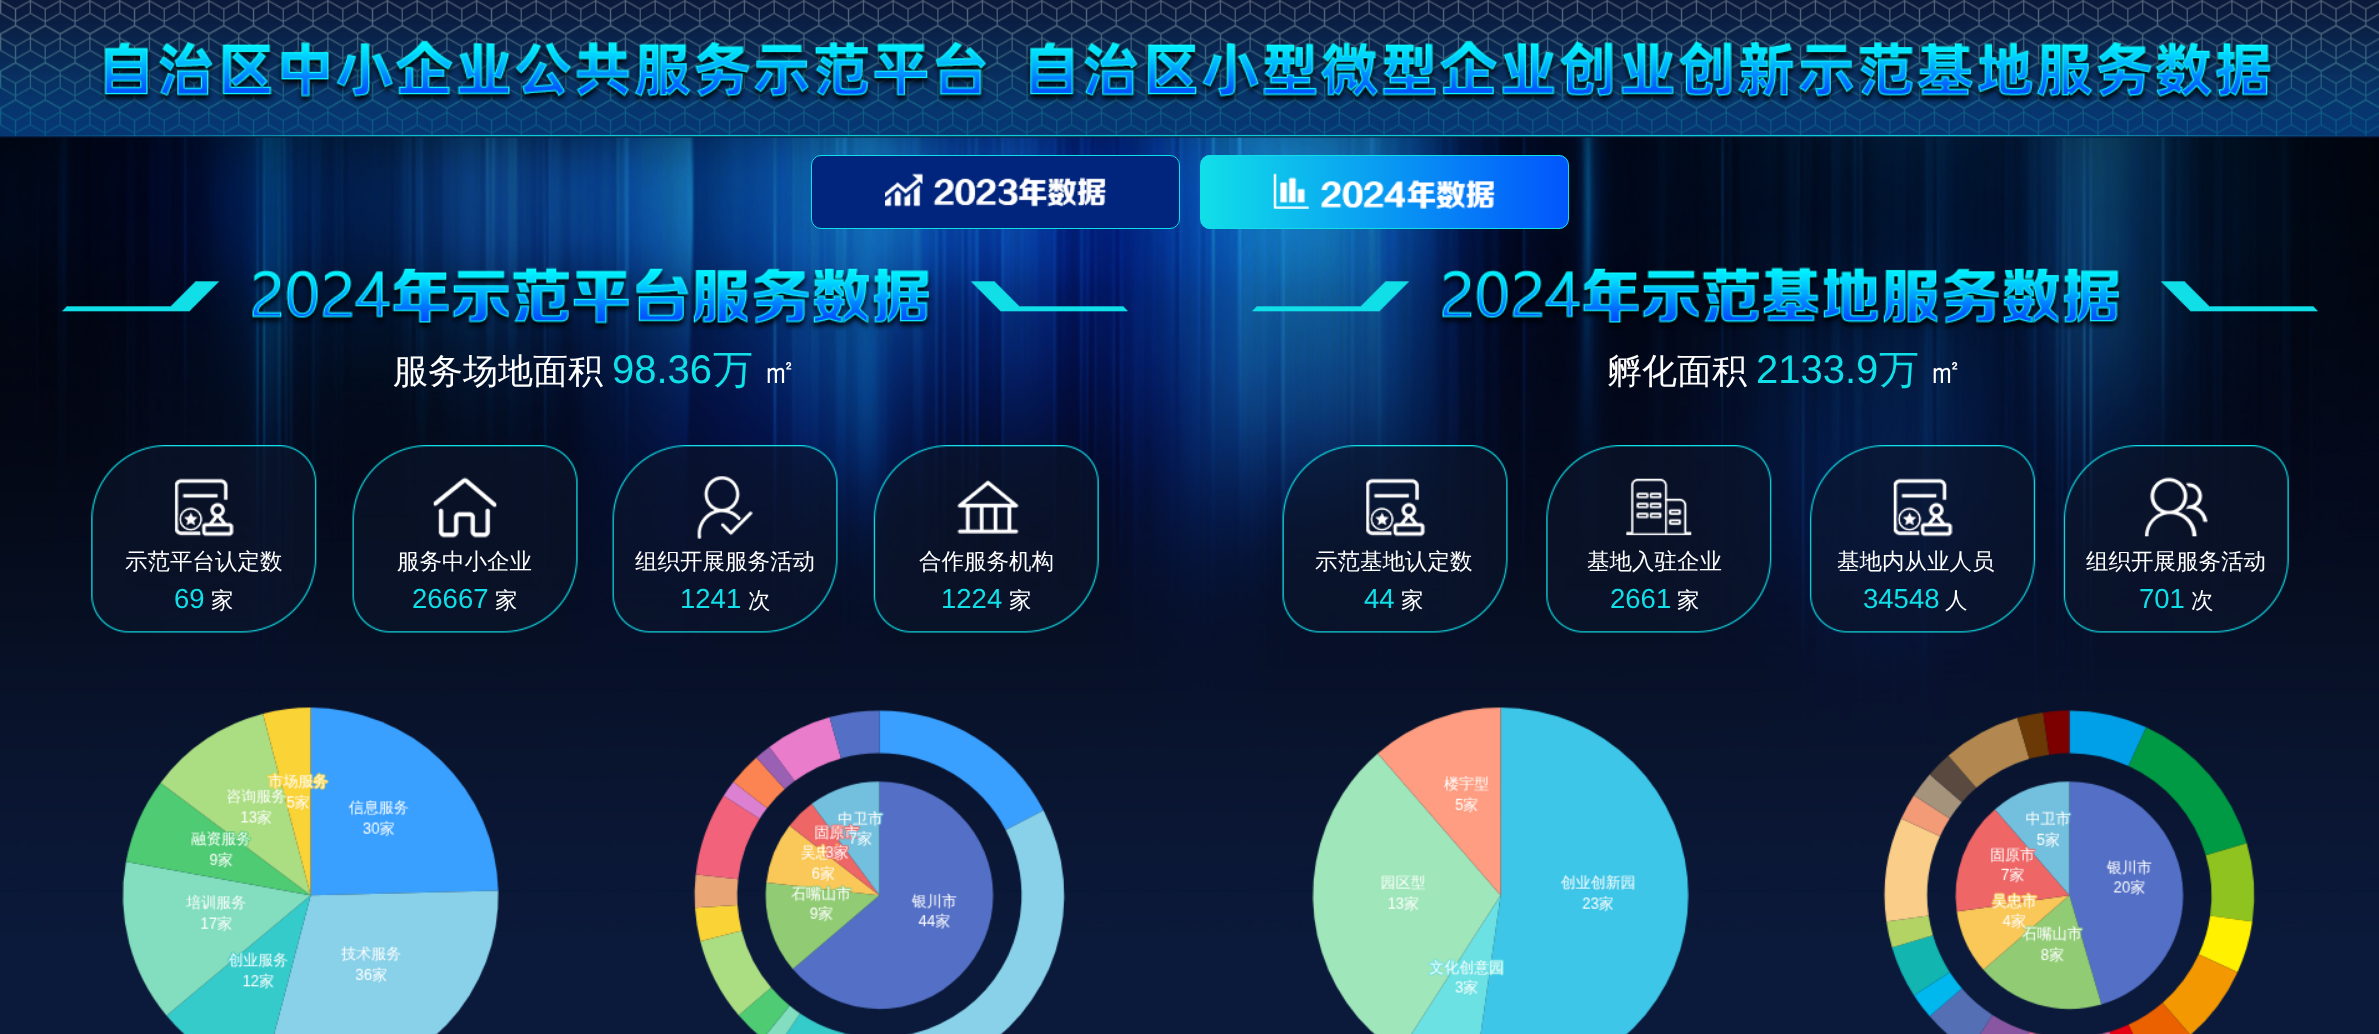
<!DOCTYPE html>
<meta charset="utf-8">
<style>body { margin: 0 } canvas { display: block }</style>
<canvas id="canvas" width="2379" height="1034"></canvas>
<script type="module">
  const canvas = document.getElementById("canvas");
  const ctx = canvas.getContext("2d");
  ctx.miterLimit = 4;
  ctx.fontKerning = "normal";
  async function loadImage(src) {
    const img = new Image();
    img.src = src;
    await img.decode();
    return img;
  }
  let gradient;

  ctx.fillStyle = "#ffffff";
  ctx.fillRect(0, 0, 2379, 1034);
  ctx.drawImage(await loadImage("img1.png"), 0, 0, 2379, 1034);
  ctx.drawImage(await loadImage("img2.png"), 0, 0, 2379, 137);
  ctx.fillStyle = "#01257d";
  ctx.beginPath();
  ctx.roundRect(811.5, 155.5, 368, 73, 9.5);
  ctx.fill();
  ctx.strokeStyle = "#11dfe8";
  ctx.stroke();
  ctx.drawImage(await loadImage("img3.png"), 885, 173, 222, 34);
  ctx.save();
  ctx.beginPath();
  ctx.roundRect(1200, 155, 369, 74, 10);
  ctx.clip();
  gradient = ctx.createLinearGradient(1201, 192, 1568, 192);
  gradient.addColorStop(0, "#11dfe8");
  gradient.addColorStop(1, "#0155fd");
  ctx.fillStyle = gradient;
  ctx.fillRect(1201, 155, 367, 74);
  ctx.restore();
  ctx.beginPath();
  ctx.roundRect(1200.5, 155.5, 368, 73, 9.5);
  ctx.stroke();
  ctx.drawImage(await loadImage("img4.png"), 1273, 173, 222, 36);
  ctx.drawImage(await loadImage("img5.png"), 62, 267, 1066, 64);
  ctx.font = "500 35px WenQuanYi Zen Hei";
  ctx.fillStyle = "#ffffff";
  ctx.fillText("服务场地面积", 393, 383);
  ctx.font = "40px Liberation Sans";
  ctx.fillStyle = "#11dfe8";
  ctx.fillText("98.36", 612, 383);
  ctx.font = "500 40px WenQuanYi Zen Hei";
  ctx.fillText("万", 713, 383);
  ctx.font = "500 35px WenQuanYi Zen Hei";
  ctx.fillStyle = "#ffffff";
  ctx.fillText("㎡", 762, 383);
  ctx.drawImage(await loadImage("img6.png"), 91, 445, 1008, 188);
  ctx.font = "500 22.5px WenQuanYi Zen Hei";
  ctx.fillText("示范平台认定数", 125, 569);
  ctx.font = "27.5px Liberation Sans";
  ctx.fillStyle = "#11dfe8";
  ctx.fillText("69", 174, 608);
  ctx.font = "500 22.5px WenQuanYi Zen Hei";
  ctx.fillStyle = "#ffffff";
  ctx.fillText("家", 211, 608);
  ctx.fillText("服务中小企业", 397, 569);
  ctx.font = "27.5px Liberation Sans";
  ctx.fillStyle = "#11dfe8";
  ctx.fillText("26667", 412, 608);
  ctx.font = "500 22.5px WenQuanYi Zen Hei";
  ctx.fillStyle = "#ffffff";
  ctx.fillText("家", 495, 608);
  ctx.fillText("组织开展服务活动", 635, 569);
  ctx.font = "27.5px Liberation Sans";
  ctx.fillStyle = "#11dfe8";
  ctx.fillText("1241", 680, 608);
  ctx.font = "500 22.5px WenQuanYi Zen Hei";
  ctx.fillStyle = "#ffffff";
  ctx.fillText("次", 748, 608);
  ctx.fillText("合作服务机构", 919, 569);
  ctx.font = "27.5px Liberation Sans";
  ctx.fillStyle = "#11dfe8";
  ctx.fillText("1224", 941, 608);
  ctx.font = "500 22.5px WenQuanYi Zen Hei";
  ctx.fillStyle = "#ffffff";
  ctx.fillText("家", 1009, 608);
  ctx.drawImage(await loadImage("img7.png"), 122, 707, 377, 327);
  ctx.drawImage(await loadImage("img8.png"), 693, 709, 373, 325);
  ctx.drawImage(await loadImage("img9.png"), 1252, 267, 1066, 63);
  ctx.font = "500 35px WenQuanYi Zen Hei";
  ctx.fillText("孵化面积", 1607, 383);
  ctx.font = "40px Liberation Sans";
  ctx.fillStyle = "#11dfe8";
  ctx.fillText("2133.9", 1756, 383);
  ctx.font = "500 40px WenQuanYi Zen Hei";
  ctx.fillText("万", 1879, 383);
  ctx.font = "500 35px WenQuanYi Zen Hei";
  ctx.fillStyle = "#ffffff";
  ctx.fillText("㎡", 1928, 383);
  ctx.drawImage(await loadImage("img10.png"), 1282, 445, 1007, 188);
  ctx.font = "500 22.5px WenQuanYi Zen Hei";
  ctx.fillText("示范基地认定数", 1315, 569);
  ctx.font = "27.5px Liberation Sans";
  ctx.fillStyle = "#11dfe8";
  ctx.fillText("44", 1364, 608);
  ctx.font = "500 22.5px WenQuanYi Zen Hei";
  ctx.fillStyle = "#ffffff";
  ctx.fillText("家", 1401, 608);
  ctx.fillText("基地入驻企业", 1587, 569);
  ctx.font = "27.5px Liberation Sans";
  ctx.fillStyle = "#11dfe8";
  ctx.fillText("2661", 1610, 608);
  ctx.font = "500 22.5px WenQuanYi Zen Hei";
  ctx.fillStyle = "#ffffff";
  ctx.fillText("家", 1677, 608);
  ctx.fillText("基地内从业人员", 1837, 569);
  ctx.font = "27.5px Liberation Sans";
  ctx.fillStyle = "#11dfe8";
  ctx.fillText("34548", 1863, 608);
  ctx.font = "500 22.5px WenQuanYi Zen Hei";
  ctx.fillStyle = "#ffffff";
  ctx.fillText("人", 1945, 608);
  ctx.fillText("组织开展服务活动", 2086, 569);
  ctx.font = "27.5px Liberation Sans";
  ctx.fillStyle = "#11dfe8";
  ctx.fillText("701", 2139, 608);
  ctx.font = "500 22.5px WenQuanYi Zen Hei";
  ctx.fillStyle = "#ffffff";
  ctx.fillText("次", 2191, 608);
  ctx.drawImage(await loadImage("img11.png"), 1312, 707, 377, 327);
  ctx.drawImage(await loadImage("img12.png"), 1883, 709, 373, 325);
</script>
